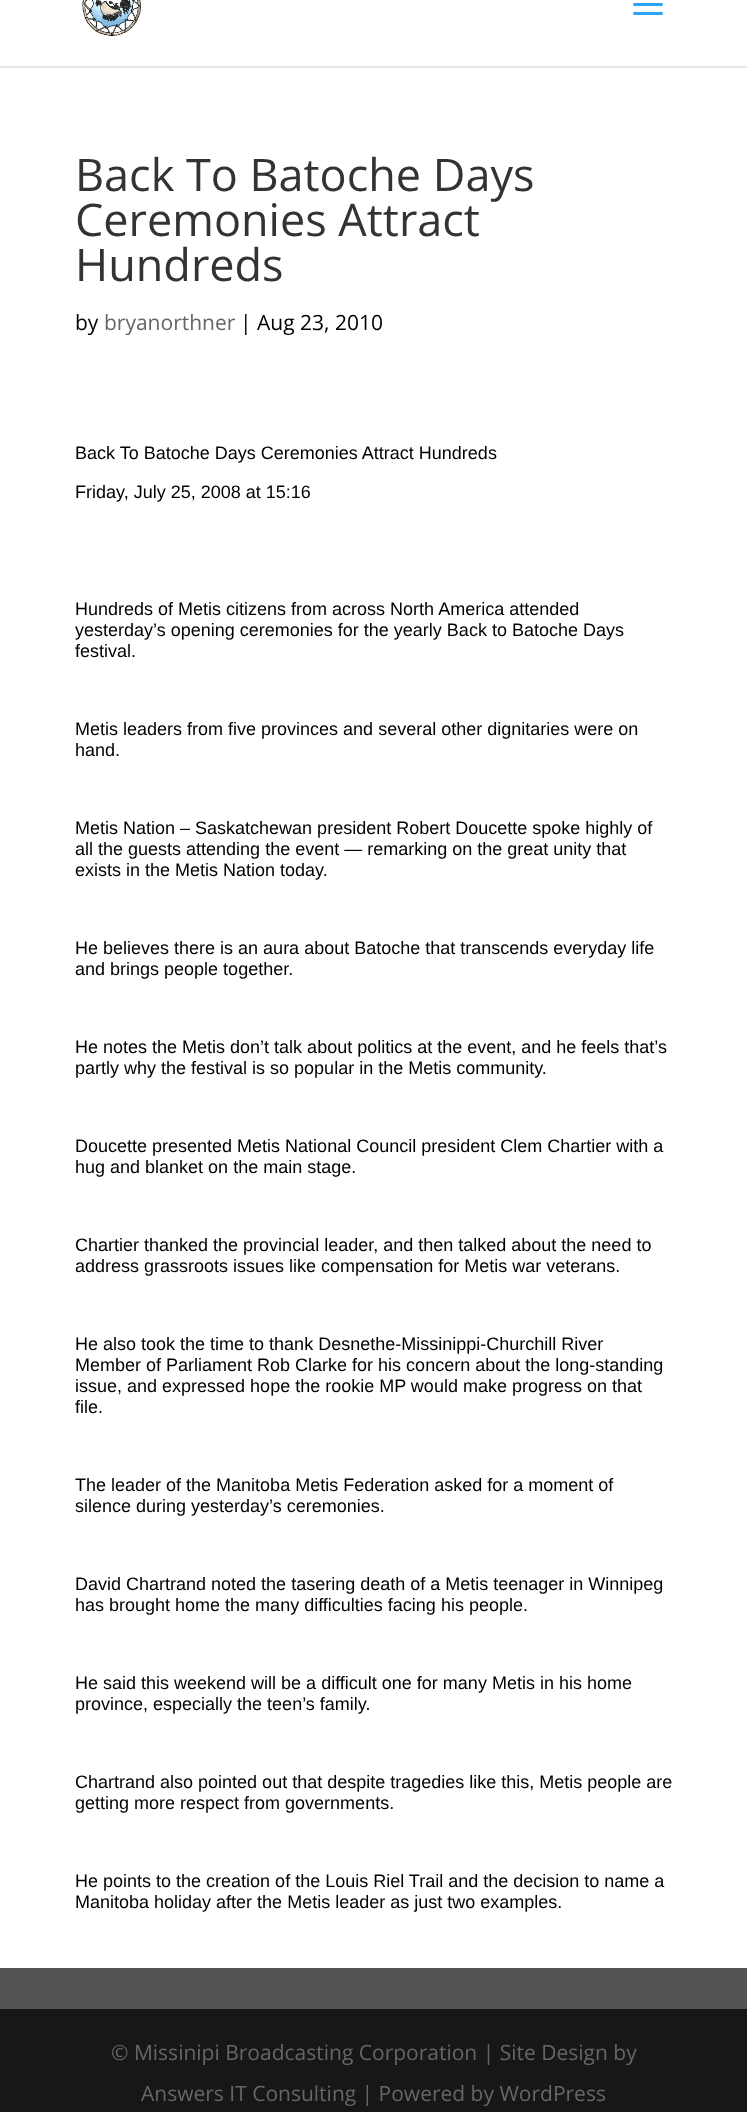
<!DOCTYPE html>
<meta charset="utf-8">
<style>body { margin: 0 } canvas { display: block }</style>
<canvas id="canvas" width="747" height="2112"></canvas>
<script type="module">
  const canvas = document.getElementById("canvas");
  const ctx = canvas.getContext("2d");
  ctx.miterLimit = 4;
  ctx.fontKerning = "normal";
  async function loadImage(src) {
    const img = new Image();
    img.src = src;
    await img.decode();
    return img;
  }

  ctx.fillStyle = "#545454";
  ctx.fillRect(0, 0, 747, 2112);
  ctx.fillStyle = "#e6e6e6";
  ctx.fillRect(0, 66, 747, 2);
  ctx.fillStyle = "#ffffff";
  ctx.fillRect(0, 0, 747, 66);
  ctx.drawImage(await loadImage("img1.png"), 82, 0, 59, 37);
  ctx.drawImage(await loadImage("img2.png"), 633, 3, 30, 12);
  ctx.fillRect(0, 68, 747, 1900);
  ctx.font = "45px Open Sans";
  ctx.fillStyle = "#333333";
  ctx.fillText("Back To Batoche Days", 75, 191);
  ctx.fillText("Ceremonies Attract", 75, 236);
  ctx.fillText("Hundreds", 75, 281);
  ctx.font = "21px Open Sans";
  ctx.fillStyle = "#000000";
  ctx.fillText("by", 75, 330);
  ctx.fillStyle = "#666666";
  ctx.fillText("bryanorthner", 104, 330);
  ctx.fillStyle = "#000000";
  ctx.fillText("| Aug 23, 2010", 240, 330);
  ctx.font = "18px Liberation Sans";
  ctx.fillText("Back To Batoche Days Ceremonies Attract Hundreds", 75, 459);
  ctx.fillText("Friday, July 25, 2008 at 15:16", 75, 498);
  ctx.fillText("Hundreds of Metis citizens from across North America attended", 75, 615);
  ctx.fillText("yesterday’s opening ceremonies for the yearly Back to Batoche Days", 75, 636);
  ctx.fillText("festival.", 75, 657);
  ctx.fillText("Metis leaders from five provinces and several other dignitaries were on", 75, 735);
  ctx.fillText("hand.", 75, 756);
  ctx.fillText("Metis Nation – Saskatchewan president Robert Doucette spoke highly of", 75, 834);
  ctx.fillText("all the guests attending the event — remarking on the great unity that", 75, 855);
  ctx.fillText("exists in the Metis Nation today.", 75, 876);
  ctx.fillText("He believes there is an aura about Batoche that transcends everyday life", 75, 954);
  ctx.fillText("and brings people together.", 75, 975);
  ctx.fillText("He notes the Metis don’t talk about politics at the event, and he feels that’s", 75, 1053);
  ctx.fillText("partly why the festival is so popular in the Metis community.", 75, 1074);
  ctx.fillText("Doucette presented Metis National Council president Clem Chartier with a", 75, 1152);
  ctx.fillText("hug and blanket on the main stage.", 75, 1173);
  ctx.fillText("Chartier thanked the provincial leader, and then talked about the need to", 75, 1251);
  ctx.fillText("address grassroots issues like compensation for Metis war veterans.", 75, 1272);
  ctx.fillText("He also took the time to thank Desnethe-Missinippi-Churchill River", 75, 1350);
  ctx.fillText("Member of Parliament Rob Clarke for his concern about the long-standing", 75, 1371);
  ctx.fillText("issue, and expressed hope the rookie MP would make progress on that", 75, 1392);
  ctx.fillText("file.", 75, 1413);
  ctx.fillText("The leader of the Manitoba Metis Federation asked for a moment of", 75, 1491);
  ctx.fillText("silence during yesterday’s ceremonies.", 75, 1512);
  ctx.fillText("David Chartrand noted the tasering death of a Metis teenager in Winnipeg", 75, 1590);
  ctx.fillText("has brought home the many difficulties facing his people.", 75, 1611);
  ctx.fillText("He said this weekend will be a difficult one for many Metis in his home", 75, 1689);
  ctx.fillText("province, especially the teen’s family.", 75, 1710);
  ctx.fillText("Chartrand also pointed out that despite tragedies like this, Metis people are", 75, 1788);
  ctx.fillText("getting more respect from governments.", 75, 1809);
  ctx.fillText("He points to the creation of the Louis Riel Trail and the decision to name a", 75, 1887);
  ctx.fillText("Manitoba holiday after the Metis leader as just two examples.", 75, 1908);
  ctx.fillStyle = "#171717";
  ctx.fillRect(0, 2009, 747, 103);
  ctx.font = "21px Open Sans";
  ctx.fillStyle = "#666666";
  ctx.fillText("© Missinipi Broadcasting Corporation | Site Design by", 111, 2060);
  ctx.fillText("Answers IT Consulting | Powered by WordPress", 141, 2101);
</script>
